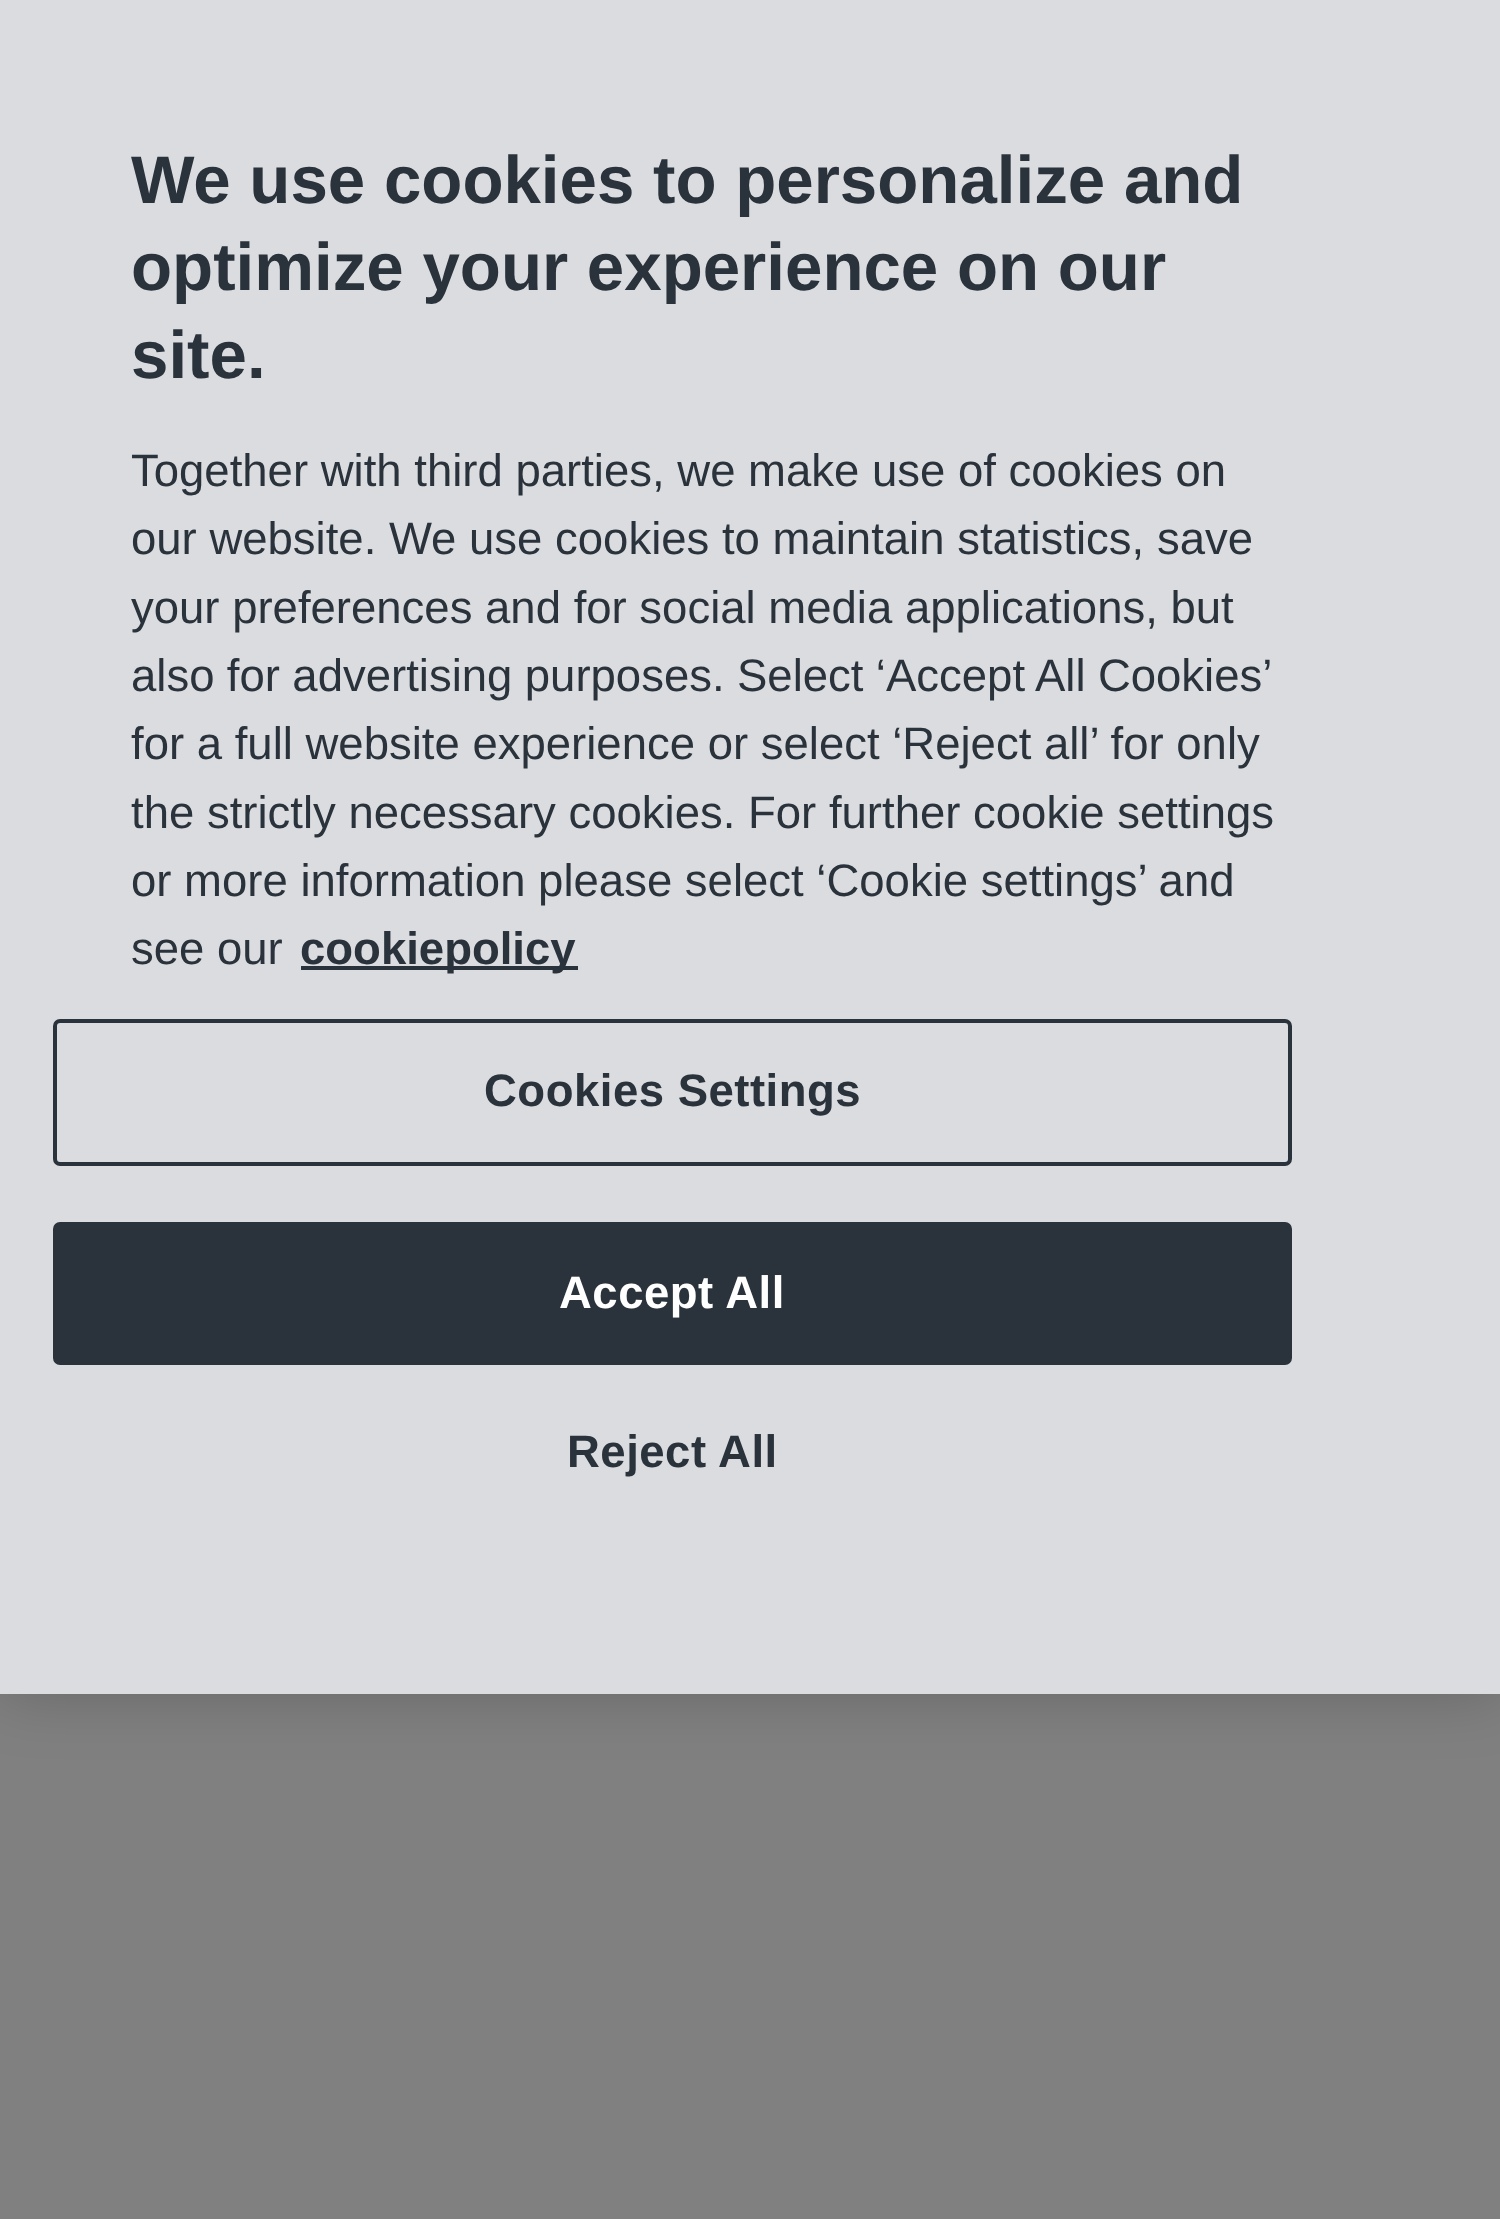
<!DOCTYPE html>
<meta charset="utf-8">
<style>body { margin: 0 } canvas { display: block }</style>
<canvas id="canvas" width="1500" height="2219"></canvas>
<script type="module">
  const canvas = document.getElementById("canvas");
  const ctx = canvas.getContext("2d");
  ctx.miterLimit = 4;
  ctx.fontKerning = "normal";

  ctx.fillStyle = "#808080";
  ctx.fillRect(0, 0, 1500, 2219);
  ctx.fillStyle = "rgba(0, 0, 0, 0.2)";
  ctx.filter = "blur(31.5px)";
  ctx.beginPath();
  ctx.rect(0, 0, 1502, 1694);
  ctx.fill();
  ctx.filter = "none";
  ctx.fillStyle = "#dbdcdf";
  ctx.fillRect(0, 0, 1500, 1694);
  ctx.font = "bold 67.25px Liberation Sans";
  ctx.fillStyle = "#2a323b";
  ctx.fillText("We use cookies to personalize and", 131, 203);
  ctx.fillText("optimize your experience on our", 131, 290);
  ctx.fillText("site.", 131, 378);
  ctx.font = "45.5px Liberation Sans";
  ctx.fillText("Together with third parties, we make use of cookies on", 131, 486);
  ctx.fillText("our website. We use cookies to maintain statistics, save", 131, 554);
  ctx.fillText("your preferences and for social media applications, but", 131, 623);
  ctx.wordSpacing = "-0.25px";
  ctx.fillText("also for advertising purposes. Select ‘Accept All Cookies’", 131, 691);
  ctx.wordSpacing = "0px";
  ctx.fillText("for a full website experience or select ‘Reject all’ for only", 131, 759);
  ctx.fillText("the strictly necessary cookies. For further cookie settings", 131, 828);
  ctx.fillText("or more information please select ‘Cookie settings’ and", 131, 896);
  ctx.fillText("see our", 131, 964);
  ctx.fillRect(301, 966, 277, 4);
  ctx.font = "bold 45.5px Liberation Sans";
  ctx.fillText("cookiepolicy", 300, 964);
  ctx.beginPath();
  ctx.roundRect(55, 1021, 1235, 143, 5);
  ctx.strokeStyle = "#2a323b";
  ctx.lineWidth = 4;
  ctx.stroke();
  ctx.letterSpacing = "0.5px";
  ctx.fillText("Cookies Settings", 484, 1106);
  ctx.beginPath();
  ctx.roundRect(55, 1224, 1235, 139, 5);
  ctx.fill();
  ctx.stroke();
  ctx.fillStyle = "#ffffff";
  ctx.fillText("Accept All", 559, 1308);
  ctx.fillStyle = "#2a323b";
  ctx.fillText("Reject All", 567, 1467);
</script>
